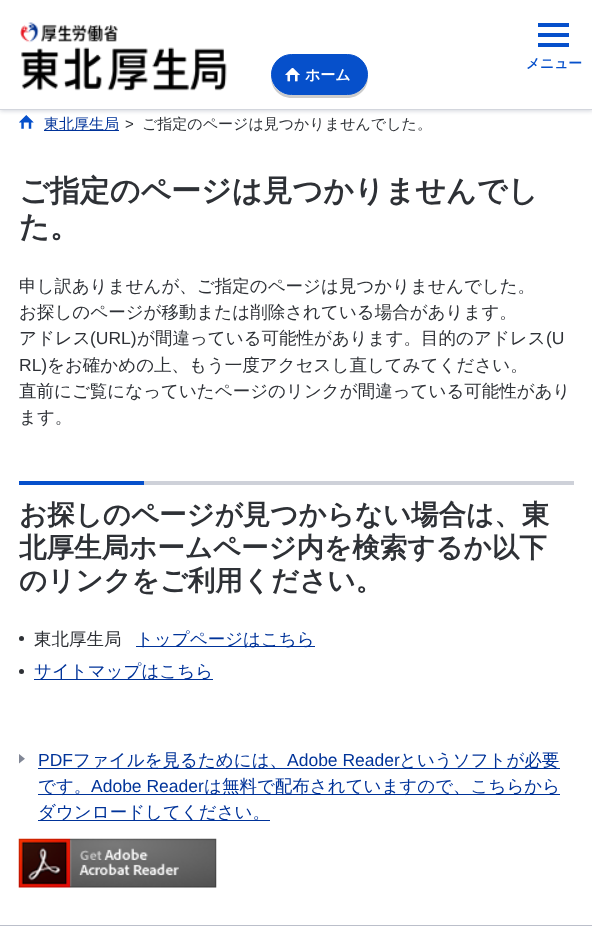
<!DOCTYPE html>
<meta charset="utf-8">
<style>body { margin: 0 } canvas { display: block }</style>
<canvas id="canvas" width="592" height="929"></canvas>
<script type="module">
  const canvas = document.getElementById("canvas");
  const ctx = canvas.getContext("2d");
  ctx.miterLimit = 4;
  ctx.fontKerning = "normal";
  async function loadImage(src) {
    const img = new Image();
    img.src = src;
    await img.decode();
    return img;
  }

  ctx.fillStyle = "#ffffff";
  ctx.fillRect(0, 0, 592, 929);
  ctx.drawImage(await loadImage("img3.png"), 19, 115, 15, 14);
  ctx.save();
  ctx.beginPath();
  ctx.rect(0, 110, 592, 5);
  ctx.clip();
  ctx.fillStyle = "#d3d6dd";
  ctx.filter = "blur(2px)";
  ctx.beginPath();
  ctx.rect(0, 1, 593, 110);
  ctx.fill();
  ctx.filter = "none";
  ctx.restore();
  ctx.fillStyle = "#d3d6dd";
  ctx.fillRect(0, 109, 592, 1);
  ctx.drawImage(await loadImage("img1.png"), 20, 22, 207, 69);
  ctx.fillStyle = "#0650cb";
  ctx.fillRect(538, 33, 31, 4);
  ctx.fillRect(538, 23, 31, 4);
  ctx.fillRect(538, 43, 31, 4);
  ctx.font = "bold 13.75px WenQuanYi Zen Hei";
  ctx.fillText("メニュー", 526, 68);
  ctx.fillStyle = "#cccccc";
  ctx.beginPath();
  ctx.moveTo(271, 74);
  ctx.lineTo(271, 77);
  ctx.bezierCurveTo(271, 89, 280, 98, 292, 98);
  ctx.lineTo(347, 98);
  ctx.bezierCurveTo(359, 98, 368, 89, 368, 77);
  ctx.lineTo(367, 72);
  ctx.lineTo(368, 74);
  ctx.bezierCurveTo(368, 86, 358, 95, 347, 95);
  ctx.lineTo(292, 95);
  ctx.bezierCurveTo(280, 95, 271, 86, 271, 74);
  ctx.closePath();
  ctx.fill();
  ctx.fillStyle = "#0650cb";
  ctx.beginPath();
  ctx.roundRect(271.5, 54.5, 96, 40, 20);
  ctx.fill();
  ctx.strokeStyle = "#0650cb";
  ctx.stroke();
  ctx.drawImage(await loadImage("img2.png"), 285, 68, 15, 14);
  ctx.font = "bold 15px WenQuanYi Zen Hei";
  ctx.fillStyle = "#ffffff";
  ctx.fillText("ホーム", 305, 80);
  ctx.fillStyle = "#003399";
  ctx.fillRect(44, 130, 75, 1);
  ctx.font = "500 15px WenQuanYi Zen Hei";
  ctx.fillText("東北厚生局", 44, 129);
  ctx.font = "15px Liberation Sans";
  ctx.fillStyle = "#2e3136";
  ctx.fillText(">", 125, 129);
  ctx.font = "500 15px WenQuanYi Zen Hei";
  ctx.fillText("ご指定のページは見つかりませんでした。", 142, 129);
  ctx.font = "bold 30px WenQuanYi Zen Hei";
  ctx.fillText("ご指定のページは見つかりませんでし", 19, 201);
  ctx.fillText("た。", 19, 237);
  ctx.font = "500 17.5px WenQuanYi Zen Hei";
  ctx.fillText("申し訳ありませんが、ご指定のページは見つかりませんでした。", 19, 292);
  ctx.fillText("お探しのページが移動または削除されている場合があります。", 19, 318);
  ctx.fillText("アドレス", 19, 344);
  ctx.font = "17.5px Liberation Sans";
  ctx.fillText("(URL)", 90, 344);
  ctx.font = "500 17.5px WenQuanYi Zen Hei";
  ctx.fillText("が間違っている可能性があります。目的のアドレス", 137, 344);
  ctx.font = "17.5px Liberation Sans";
  ctx.fillText("(U", 546, 344);
  ctx.fillText("RL)", 19, 371);
  ctx.font = "500 17.5px WenQuanYi Zen Hei";
  ctx.fillText("をお確かめの上、もう一度アクセスし直してみてください。", 47, 371);
  ctx.fillText("直前にご覧になっていたページのリンクが間違っている可能性があり", 19, 397);
  ctx.fillText("ます。", 19, 423);
  ctx.fillStyle = "#ced1d9";
  ctx.fillRect(144, 481, 430, 4);
  ctx.fillStyle = "#0650cb";
  ctx.fillRect(19, 481, 125, 4);
  ctx.font = "bold 27.5px WenQuanYi Zen Hei";
  ctx.fillStyle = "#2e3136";
  ctx.fillText("お探しのページが見つからない場合は、東", 19, 524);
  ctx.fillText("北厚生局ホームページ内を検索するか以下", 19, 557);
  ctx.fillText("のリンクをご利用ください。", 19, 590);
  ctx.beginPath();
  ctx.arc(21.5, 638.5, 2.5, 0, Math.PI * 2);
  ctx.fill();
  ctx.font = "500 17.5px WenQuanYi Zen Hei";
  ctx.fillText("東北厚生局", 34, 645);
  ctx.fillStyle = "#003399";
  ctx.fillRect(136, 646, 179, 1);
  ctx.fillText("トップページはこちら", 136, 645);
  ctx.fillStyle = "#2e3136";
  ctx.beginPath();
  ctx.arc(21.5, 671.5, 2.5, 0, Math.PI * 2);
  ctx.fill();
  ctx.fillStyle = "#003399";
  ctx.fillRect(34, 679, 179, 1);
  ctx.fillText("サイトマップはこちら", 34, 677);
  ctx.drawImage(await loadImage("img4.png"), 19, 754, 6, 10);
  ctx.font = "17.5px Liberation Sans";
  ctx.fillText("PDF", 38, 766);
  ctx.fillRect(38, 768, 522, 1);
  ctx.font = "500 17.5px WenQuanYi Zen Hei";
  ctx.fillText("ファイルを見るためには、", 73, 766);
  ctx.font = "17.5px Liberation Sans";
  ctx.fillText("Adobe Reader", 287, 766);
  ctx.font = "500 17.5px WenQuanYi Zen Hei";
  ctx.fillText("というソフトが必要", 399, 766);
  ctx.fillRect(38, 794, 522, 1);
  ctx.fillText("です。", 38, 792);
  ctx.font = "17.5px Liberation Sans";
  ctx.fillText("Adobe Reader", 91, 792);
  ctx.font = "500 17.5px WenQuanYi Zen Hei";
  ctx.fillText("は無料で配布されていますので、こちらから", 204, 792);
  ctx.fillRect(38, 820, 232, 1);
  ctx.fillText("ダウンロードしてください。", 38, 818);
  ctx.drawImage(await loadImage("img5.png"), 18, 838, 199, 50);
  ctx.strokeStyle = "#bbbfca";
  ctx.strokeRect(-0.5, 925.5, 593, 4);
</script>
